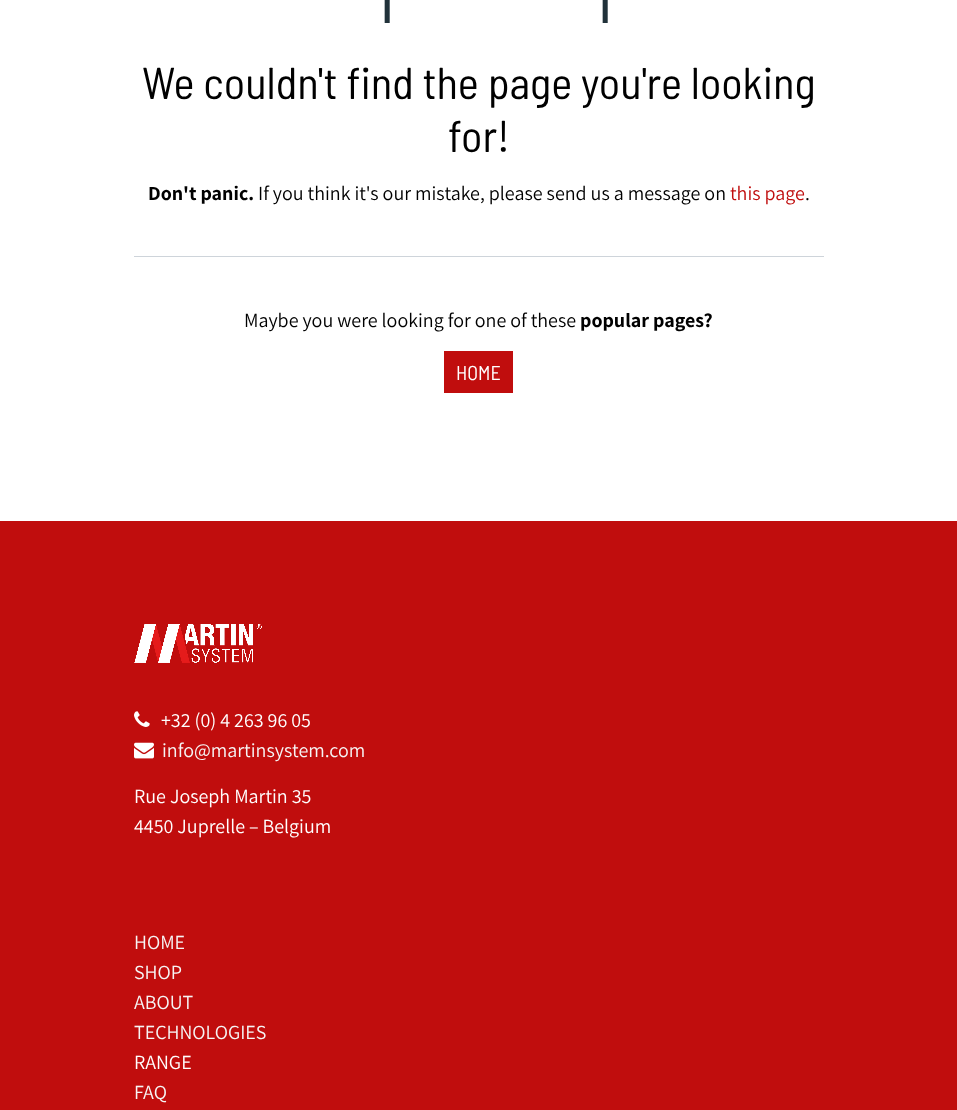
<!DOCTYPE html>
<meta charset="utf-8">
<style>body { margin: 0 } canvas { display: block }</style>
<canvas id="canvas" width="957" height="1110"></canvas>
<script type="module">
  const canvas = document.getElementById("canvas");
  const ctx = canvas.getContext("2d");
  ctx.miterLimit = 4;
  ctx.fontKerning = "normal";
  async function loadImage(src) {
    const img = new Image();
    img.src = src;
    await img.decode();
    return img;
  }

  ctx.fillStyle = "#ffffff";
  ctx.fillRect(0, 0, 957, 1110);
  ctx.drawImage(await loadImage("img1.png"), 384, 0, 224, 23);
  ctx.font = "44.5px Barlow Semi Condensed";
  ctx.fillStyle = "#000000";
  ctx.fillText("We couldn't find the page you're looking", 142, 99);
  ctx.fillText("for!", 448, 152);
  ctx.font = "bold 20px Assistant";
  ctx.fillText("Don't panic.", 148, 200);
  ctx.font = "20px Assistant";
  ctx.fillText("If you think it's our mistake, please send us a message on", 258, 200);
  ctx.fillStyle = "#c00d0d";
  ctx.fillText("this page", 730, 200);
  ctx.fillStyle = "#000000";
  ctx.fillText(".", 805, 200);
  ctx.fillStyle = "#ced4da";
  ctx.fillRect(134, 256, 690, 1);
  ctx.fillStyle = "#000000";
  ctx.fillText("Maybe you were looking for one of these", 244, 327);
  ctx.font = "bold 20px Assistant";
  ctx.fillText("popular pages?", 580, 327);
  ctx.fillStyle = "#c00d0d";
  ctx.fillRect(444, 351, 69, 42);
  ctx.font = "20px Barlow Semi Condensed";
  ctx.fillStyle = "#ffffff";
  ctx.fillText("HOME", 456, 380);
  ctx.fillStyle = "#c00d0d";
  ctx.fillRect(0, 521, 957, 589);
  ctx.drawImage(await loadImage("img2.png"), 134, 624, 128, 39);
  ctx.drawImage(await loadImage("img3.png"), 134, 711, 16, 16);
  ctx.font = "20px Assistant";
  ctx.fillStyle = "#ffffff";
  ctx.fillText("+32 (0) 4 263 96 05", 161, 727);
  ctx.drawImage(await loadImage("img4.png"), 134, 742, 20, 17);
  ctx.fillStyle = "#f6f5f5";
  ctx.fillText("info@martinsystem.com", 162, 757);
  ctx.fillStyle = "#ffffff";
  ctx.fillText("Rue Joseph Martin 35", 134, 803);
  ctx.fillText("4450 Juprelle – Belgium", 134, 833);
  ctx.fillStyle = "#f6f5f5";
  ctx.fillText("HOME", 134, 949);
  ctx.fillText("SHOP", 134, 979);
  ctx.fillText("ABOUT", 134, 1009);
  ctx.fillText("TECHNOLOGIES", 134, 1039);
  ctx.fillStyle = "#ffffff";
  ctx.fillText("RANGE", 134, 1069);
  ctx.fillStyle = "#f6f5f5";
  ctx.fillText("FAQ", 134, 1099);
</script>
